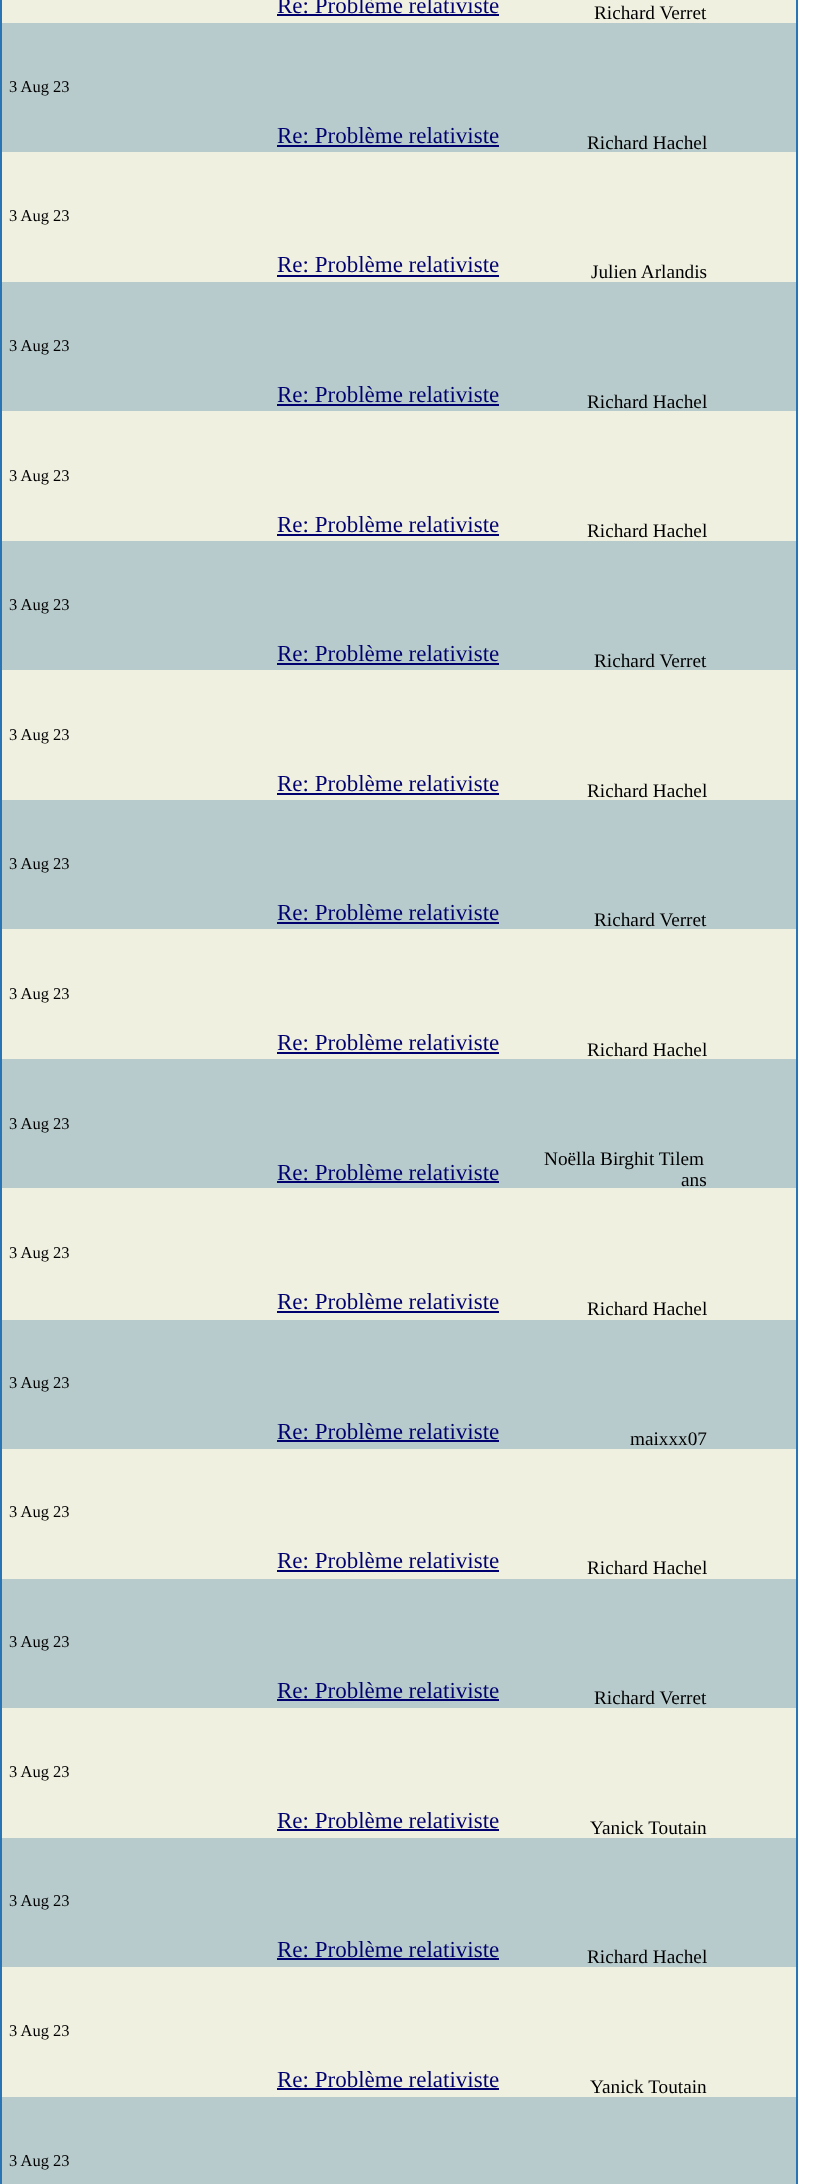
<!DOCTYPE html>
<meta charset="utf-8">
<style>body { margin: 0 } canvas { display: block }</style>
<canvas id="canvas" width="821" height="2184"></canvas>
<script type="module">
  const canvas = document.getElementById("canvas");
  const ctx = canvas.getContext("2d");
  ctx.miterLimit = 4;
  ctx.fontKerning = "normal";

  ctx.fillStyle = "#ffffff";
  ctx.fillRect(0, 0, 821, 2184);
  ctx.fillStyle = "#2974b4";
  ctx.fillRect(796, 0, 2, 2184);
  ctx.fillRect(0, 0, 2, 2184);
  ctx.fillStyle = "#f0f0e0";
  ctx.fillRect(2, 0, 794, 23);
  ctx.font = "23px Liberation Serif";
  ctx.fillStyle = "#00006f";
  ctx.fillText("Re: Problème relativiste", 277, 13);
  ctx.fillRect(277, 14, 222, 2);
  ctx.font = "19.25px Liberation Serif";
  ctx.fillStyle = "#000000";
  ctx.fillText("Richard Verret", 594, 19);
  ctx.fillStyle = "#b8cbcc";
  ctx.fillRect(2, 23, 794, 129);
  ctx.font = "16.5px Liberation Serif";
  ctx.fillStyle = "#000000";
  ctx.fillText("3 Aug 23", 9, 92);
  ctx.font = "23px Liberation Serif";
  ctx.fillStyle = "#00006f";
  ctx.fillText("Re: Problème relativiste", 277, 143);
  ctx.fillRect(277, 145, 222, 2);
  ctx.font = "19.25px Liberation Serif";
  ctx.fillStyle = "#000000";
  ctx.fillText("Richard Hachel", 587, 149);
  ctx.fillStyle = "#f0f0e0";
  ctx.fillRect(2, 152, 794, 130);
  ctx.font = "16.5px Liberation Serif";
  ctx.fillStyle = "#000000";
  ctx.fillText("3 Aug 23", 9, 221);
  ctx.font = "23px Liberation Serif";
  ctx.fillStyle = "#00006f";
  ctx.fillText("Re: Problème relativiste", 277, 272);
  ctx.fillRect(277, 275, 222, 2);
  ctx.font = "19.25px Liberation Serif";
  ctx.fillStyle = "#000000";
  ctx.fillText("Julien Arlandis", 591, 278);
  ctx.fillStyle = "#b8cbcc";
  ctx.fillRect(2, 282, 794, 129);
  ctx.font = "16.5px Liberation Serif";
  ctx.fillStyle = "#000000";
  ctx.fillText("3 Aug 23", 9, 351);
  ctx.font = "23px Liberation Serif";
  ctx.fillStyle = "#00006f";
  ctx.fillText("Re: Problème relativiste", 277, 402);
  ctx.fillRect(277, 404, 222, 2);
  ctx.font = "19.25px Liberation Serif";
  ctx.fillStyle = "#000000";
  ctx.fillText("Richard Hachel", 587, 408);
  ctx.fillStyle = "#f0f0e0";
  ctx.fillRect(2, 411, 794, 130);
  ctx.font = "16.5px Liberation Serif";
  ctx.fillStyle = "#000000";
  ctx.fillText("3 Aug 23", 9, 481);
  ctx.font = "23px Liberation Serif";
  ctx.fillStyle = "#00006f";
  ctx.fillText("Re: Problème relativiste", 277, 532);
  ctx.fillRect(277, 534, 222, 2);
  ctx.font = "19.25px Liberation Serif";
  ctx.fillStyle = "#000000";
  ctx.fillText("Richard Hachel", 587, 537);
  ctx.fillStyle = "#b8cbcc";
  ctx.fillRect(2, 541, 794, 129);
  ctx.font = "16.5px Liberation Serif";
  ctx.fillStyle = "#000000";
  ctx.fillText("3 Aug 23", 9, 610);
  ctx.font = "23px Liberation Serif";
  ctx.fillStyle = "#00006f";
  ctx.fillText("Re: Problème relativiste", 277, 661);
  ctx.fillRect(277, 663, 222, 2);
  ctx.font = "19.25px Liberation Serif";
  ctx.fillStyle = "#000000";
  ctx.fillText("Richard Verret", 594, 667);
  ctx.fillStyle = "#f0f0e0";
  ctx.fillRect(2, 670, 794, 130);
  ctx.font = "16.5px Liberation Serif";
  ctx.fillStyle = "#000000";
  ctx.fillText("3 Aug 23", 9, 740);
  ctx.font = "23px Liberation Serif";
  ctx.fillStyle = "#00006f";
  ctx.fillText("Re: Problème relativiste", 277, 791);
  ctx.fillRect(277, 793, 222, 2);
  ctx.font = "19.25px Liberation Serif";
  ctx.fillStyle = "#000000";
  ctx.fillText("Richard Hachel", 587, 797);
  ctx.fillStyle = "#b8cbcc";
  ctx.fillRect(2, 800, 794, 129);
  ctx.font = "16.5px Liberation Serif";
  ctx.fillStyle = "#000000";
  ctx.fillText("3 Aug 23", 9, 869);
  ctx.font = "23px Liberation Serif";
  ctx.fillStyle = "#00006f";
  ctx.fillText("Re: Problème relativiste", 277, 920);
  ctx.fillRect(277, 922, 222, 2);
  ctx.font = "19.25px Liberation Serif";
  ctx.fillStyle = "#000000";
  ctx.fillText("Richard Verret", 594, 926);
  ctx.fillStyle = "#f0f0e0";
  ctx.fillRect(2, 929, 794, 130);
  ctx.font = "16.5px Liberation Serif";
  ctx.fillStyle = "#000000";
  ctx.fillText("3 Aug 23", 9, 999);
  ctx.font = "23px Liberation Serif";
  ctx.fillStyle = "#00006f";
  ctx.fillText("Re: Problème relativiste", 277, 1050);
  ctx.fillRect(277, 1052, 222, 2);
  ctx.font = "19.25px Liberation Serif";
  ctx.fillStyle = "#000000";
  ctx.fillText("Richard Hachel", 587, 1056);
  ctx.fillStyle = "#b8cbcc";
  ctx.fillRect(2, 1059, 794, 129);
  ctx.font = "16.5px Liberation Serif";
  ctx.fillStyle = "#000000";
  ctx.fillText("3 Aug 23", 9, 1129);
  ctx.font = "23px Liberation Serif";
  ctx.fillStyle = "#00006f";
  ctx.fillText("Re: Problème relativiste", 277, 1180);
  ctx.fillRect(277, 1181, 222, 2);
  ctx.font = "19.25px Liberation Serif";
  ctx.fillStyle = "#000000";
  ctx.fillText("Noëlla Birghit Tilem", 544, 1165);
  ctx.fillText("ans", 681, 1186);
  ctx.fillStyle = "#f0f0e0";
  ctx.fillRect(2, 1188, 794, 132);
  ctx.font = "16.5px Liberation Serif";
  ctx.fillStyle = "#000000";
  ctx.fillText("3 Aug 23", 9, 1258);
  ctx.font = "23px Liberation Serif";
  ctx.fillStyle = "#00006f";
  ctx.fillText("Re: Problème relativiste", 277, 1309);
  ctx.fillRect(277, 1311, 222, 2);
  ctx.font = "19.25px Liberation Serif";
  ctx.fillStyle = "#000000";
  ctx.fillText("Richard Hachel", 587, 1315);
  ctx.fillStyle = "#b8cbcc";
  ctx.fillRect(2, 1320, 794, 129);
  ctx.font = "16.5px Liberation Serif";
  ctx.fillStyle = "#000000";
  ctx.fillText("3 Aug 23", 9, 1388);
  ctx.font = "23px Liberation Serif";
  ctx.fillStyle = "#00006f";
  ctx.fillText("Re: Problème relativiste", 277, 1439);
  ctx.fillRect(277, 1440, 222, 2);
  ctx.font = "19.25px Liberation Serif";
  ctx.fillStyle = "#000000";
  ctx.fillText("maixxx07", 630, 1445);
  ctx.fillStyle = "#f0f0e0";
  ctx.fillRect(2, 1449, 794, 130);
  ctx.font = "16.5px Liberation Serif";
  ctx.fillStyle = "#000000";
  ctx.fillText("3 Aug 23", 9, 1517);
  ctx.font = "23px Liberation Serif";
  ctx.fillStyle = "#00006f";
  ctx.fillText("Re: Problème relativiste", 277, 1568);
  ctx.fillRect(277, 1570, 222, 2);
  ctx.font = "19.25px Liberation Serif";
  ctx.fillStyle = "#000000";
  ctx.fillText("Richard Hachel", 587, 1574);
  ctx.fillStyle = "#b8cbcc";
  ctx.fillRect(2, 1579, 794, 129);
  ctx.font = "16.5px Liberation Serif";
  ctx.fillStyle = "#000000";
  ctx.fillText("3 Aug 23", 9, 1647);
  ctx.font = "23px Liberation Serif";
  ctx.fillStyle = "#00006f";
  ctx.fillText("Re: Problème relativiste", 277, 1698);
  ctx.fillRect(277, 1699, 222, 2);
  ctx.font = "19.25px Liberation Serif";
  ctx.fillStyle = "#000000";
  ctx.fillText("Richard Verret", 594, 1704);
  ctx.fillStyle = "#f0f0e0";
  ctx.fillRect(2, 1708, 794, 130);
  ctx.font = "16.5px Liberation Serif";
  ctx.fillStyle = "#000000";
  ctx.fillText("3 Aug 23", 9, 1777);
  ctx.font = "23px Liberation Serif";
  ctx.fillStyle = "#00006f";
  ctx.fillText("Re: Problème relativiste", 277, 1828);
  ctx.fillRect(277, 1829, 222, 2);
  ctx.font = "19.25px Liberation Serif";
  ctx.fillStyle = "#000000";
  ctx.fillText("Yanick Toutain", 590, 1834);
  ctx.fillStyle = "#b8cbcc";
  ctx.fillRect(2, 1838, 794, 129);
  ctx.font = "16.5px Liberation Serif";
  ctx.fillStyle = "#000000";
  ctx.fillText("3 Aug 23", 9, 1906);
  ctx.font = "23px Liberation Serif";
  ctx.fillStyle = "#00006f";
  ctx.fillText("Re: Problème relativiste", 277, 1957);
  ctx.fillRect(277, 1958, 222, 2);
  ctx.font = "19.25px Liberation Serif";
  ctx.fillStyle = "#000000";
  ctx.fillText("Richard Hachel", 587, 1963);
  ctx.fillStyle = "#f0f0e0";
  ctx.fillRect(2, 1967, 794, 130);
  ctx.font = "16.5px Liberation Serif";
  ctx.fillStyle = "#000000";
  ctx.fillText("3 Aug 23", 9, 2036);
  ctx.font = "23px Liberation Serif";
  ctx.fillStyle = "#00006f";
  ctx.fillText("Re: Problème relativiste", 277, 2087);
  ctx.fillRect(277, 2088, 222, 2);
  ctx.font = "19.25px Liberation Serif";
  ctx.fillStyle = "#000000";
  ctx.fillText("Yanick Toutain", 590, 2093);
  ctx.fillStyle = "#b8cbcc";
  ctx.fillRect(2, 2097, 794, 87);
  ctx.font = "16.5px Liberation Serif";
  ctx.fillStyle = "#000000";
  ctx.fillText("3 Aug 23", 9, 2166);
</script>
